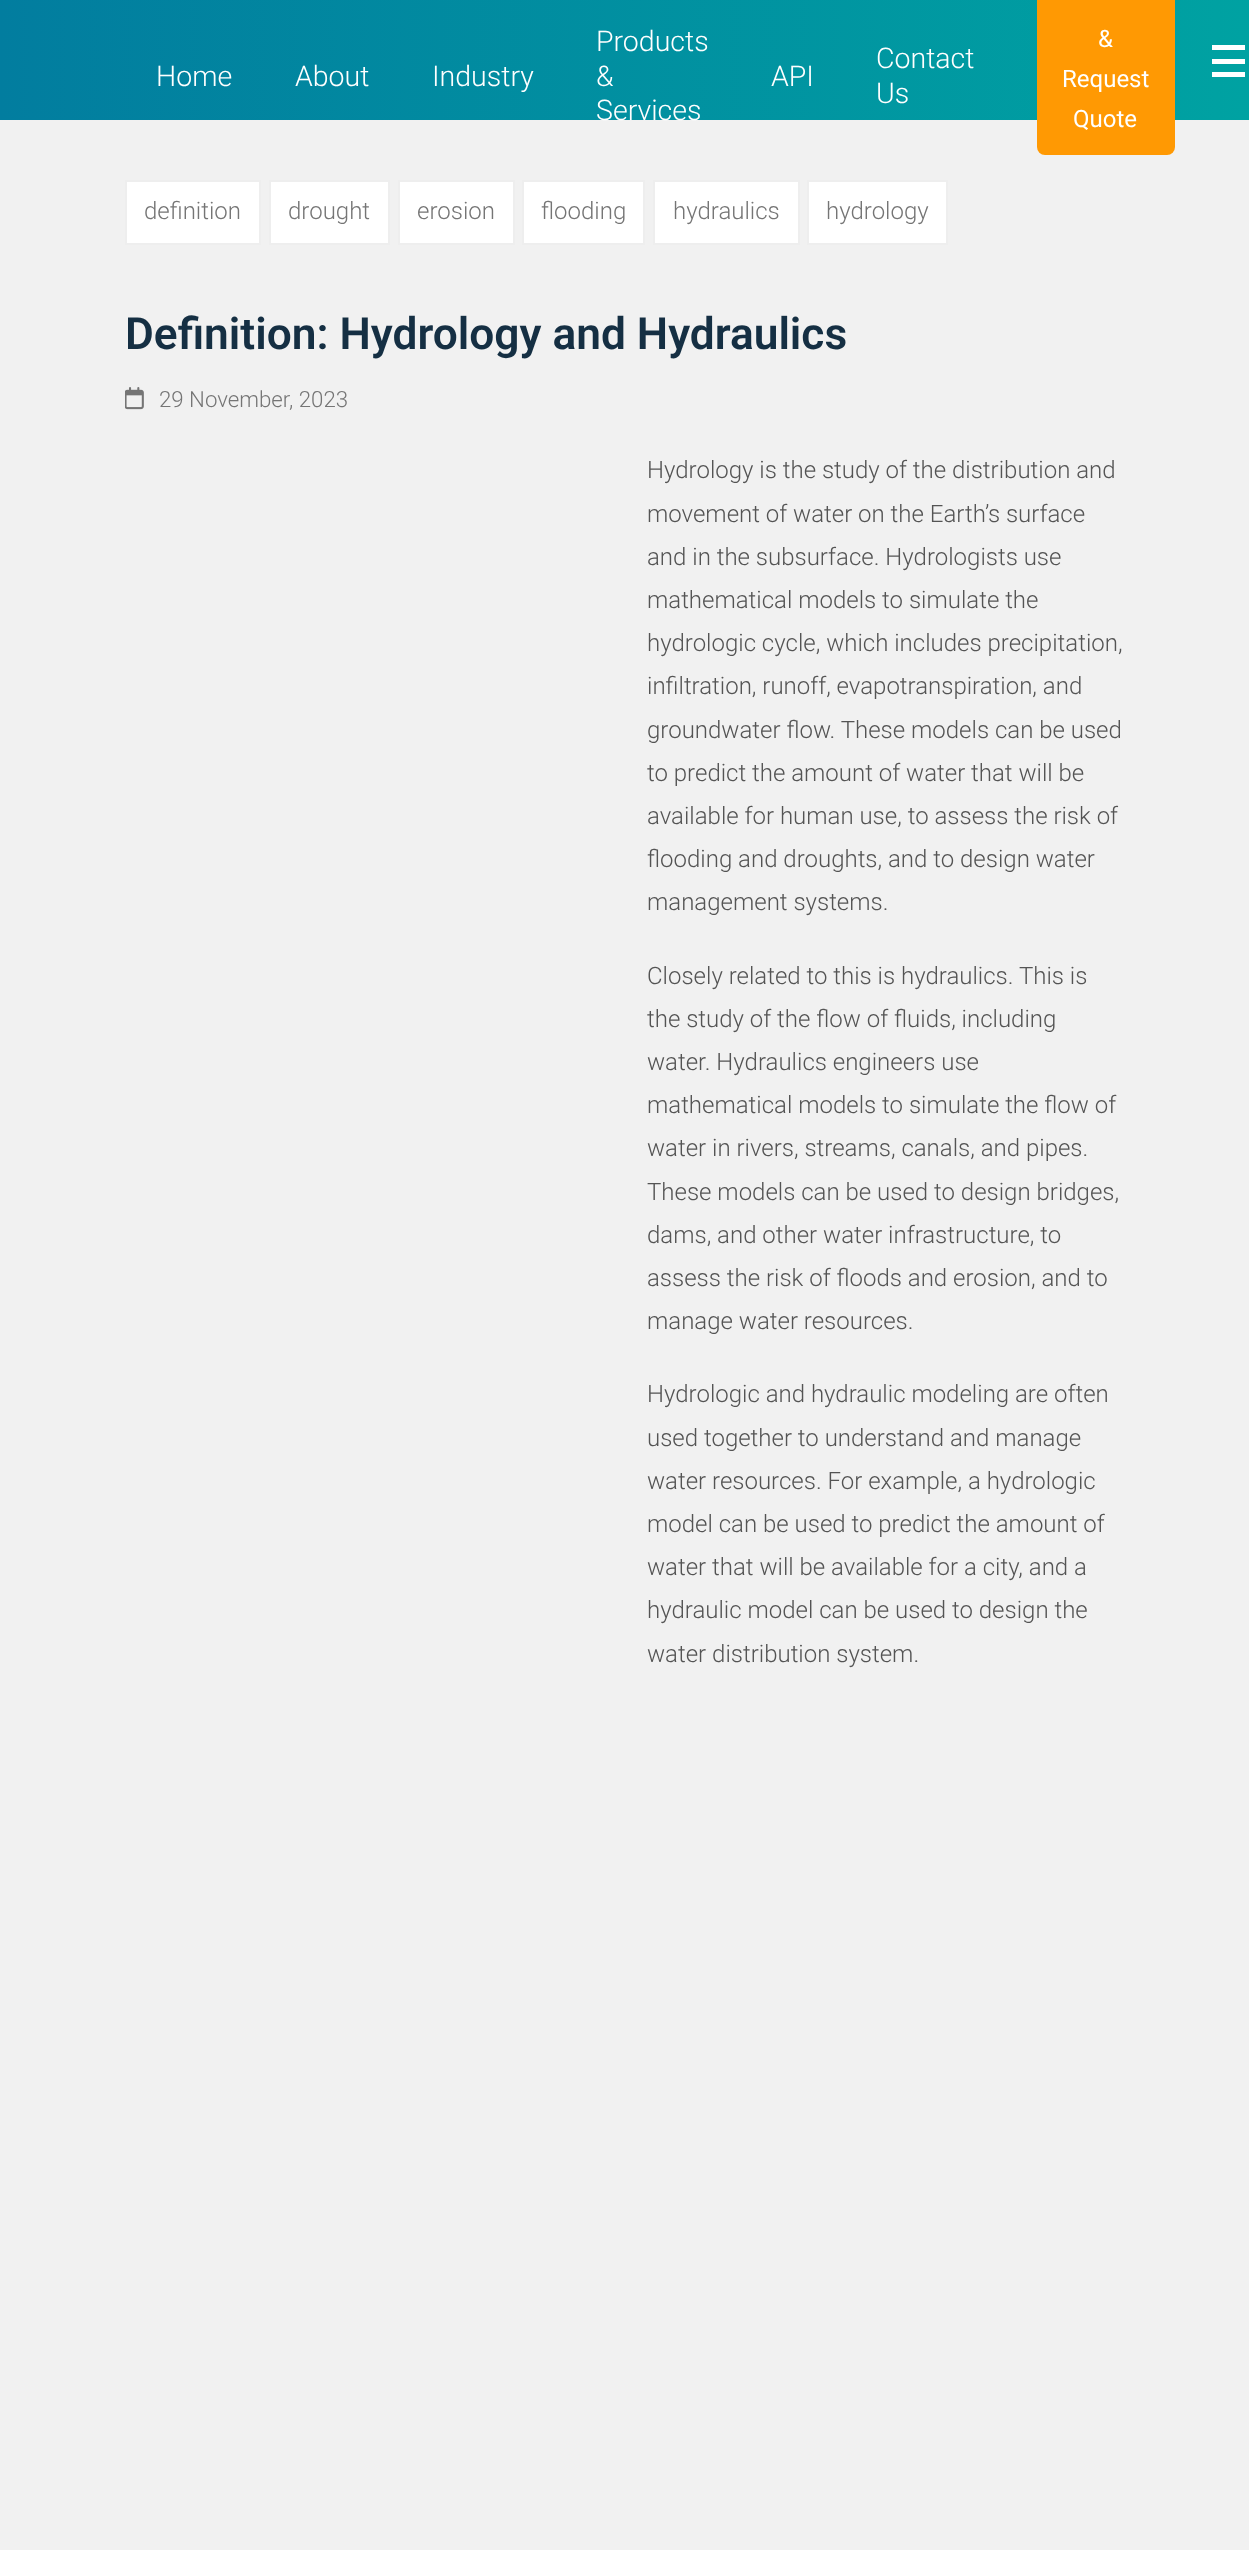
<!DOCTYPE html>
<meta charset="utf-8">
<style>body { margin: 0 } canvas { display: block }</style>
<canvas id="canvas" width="1249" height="2550"></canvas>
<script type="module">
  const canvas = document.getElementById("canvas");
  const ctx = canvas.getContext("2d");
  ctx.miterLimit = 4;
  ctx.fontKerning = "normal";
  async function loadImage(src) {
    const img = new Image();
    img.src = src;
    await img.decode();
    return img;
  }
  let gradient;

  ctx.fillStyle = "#f1f1f1";
  ctx.fillRect(0, 0, 1249, 2550);
  gradient = ctx.createLinearGradient(0, 60, 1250, 60);
  gradient.addColorStop(0, "#027d9f");
  gradient.addColorStop(1, "#00a2a2");
  ctx.fillStyle = gradient;
  ctx.fillRect(0, 0, 1249, 120);
  ctx.font = "300 28.5px Roboto";
  ctx.fillStyle = "#ffffff";
  ctx.fillText("Home", 156, 86);
  ctx.fillText("About", 295, 86);
  ctx.fillText("Industry", 432, 86);
  ctx.fillText("Products", 596, 51);
  ctx.fillText("&", 596, 86);
  ctx.fillText("Services", 596, 120);
  ctx.fillText("API", 771, 86);
  ctx.fillText("Contact", 876, 68);
  ctx.fillText("Us", 876, 103);
  ctx.fillStyle = "#ff9903";
  ctx.beginPath();
  ctx.roundRect(1037, 0, 138, 155, [0, 0, 8, 8]);
  ctx.fill();
  ctx.font = "24px Roboto";
  ctx.fillStyle = "#ffffff";
  ctx.fillText("&", 1098, 47);
  ctx.fillText("Request", 1062, 87);
  ctx.fillText("Quote", 1073, 127);
  ctx.fillRect(1212, 59, 33, 5);
  ctx.fillRect(1212, 45, 33, 5);
  ctx.fillRect(1212, 72, 33, 5);
  ctx.beginPath();
  ctx.rect(126, 181, 134, 63);
  ctx.fill();
  ctx.strokeStyle = "#eeeeee";
  ctx.lineWidth = 2;
  ctx.stroke();
  ctx.font = "300 24px Roboto";
  ctx.fillStyle = "#757575";
  ctx.fillText("definition", 144, 219);
  ctx.fillStyle = "#ffffff";
  ctx.beginPath();
  ctx.rect(270, 181, 119, 63);
  ctx.fill();
  ctx.stroke();
  ctx.fillStyle = "#757575";
  ctx.fillText("drought", 288, 219);
  ctx.fillStyle = "#ffffff";
  ctx.beginPath();
  ctx.rect(399, 181, 115, 63);
  ctx.fill();
  ctx.stroke();
  ctx.fillStyle = "#757575";
  ctx.fillText("erosion", 417, 219);
  ctx.fillStyle = "#ffffff";
  ctx.beginPath();
  ctx.rect(523, 181, 121, 63);
  ctx.fill();
  ctx.stroke();
  ctx.fillStyle = "#757575";
  ctx.fillText("flooding", 541, 219);
  ctx.fillStyle = "#ffffff";
  ctx.beginPath();
  ctx.rect(654, 181, 145, 63);
  ctx.fill();
  ctx.stroke();
  ctx.fillStyle = "#757575";
  ctx.fillText("hydraulics", 673, 219);
  ctx.fillStyle = "#ffffff";
  ctx.beginPath();
  ctx.rect(808, 181, 139, 63);
  ctx.fill();
  ctx.stroke();
  ctx.fillStyle = "#757575";
  ctx.fillText("hydrology", 826, 219);
  ctx.font = "600 44.25px Roboto";
  ctx.fillStyle = "#152f43";
  ctx.fillText("Definition: Hydrology and Hydraulics", 125, 349);
  ctx.drawImage(await loadImage("img1.png"), 125, 387, 19, 23);
  ctx.font = "300 22.25px Roboto";
  ctx.fillStyle = "#757575";
  ctx.fillText("29 November, 2023", 159, 407);
  ctx.font = "300 24px Roboto";
  ctx.fillStyle = "#545454";
  ctx.fillText("Hydrology is the study of the distribution and", 647, 478);
  ctx.fillText("movement of water on the Earth’s surface", 647, 522);
  ctx.fillText("and in the subsurface. Hydrologists use", 647, 565);
  ctx.fillText("mathematical models to simulate the", 647, 608);
  ctx.fillText("hydrologic cycle, which includes precipitation,", 647, 651);
  ctx.fillText("infiltration, runoff, evapotranspiration, and", 647, 694);
  ctx.fillText("groundwater flow. These models can be used", 647, 738);
  ctx.fillText("to predict the amount of water that will be", 647, 781);
  ctx.fillText("available for human use, to assess the risk of", 647, 824);
  ctx.fillText("flooding and droughts, and to design water", 647, 867);
  ctx.fillText("management systems.", 647, 910);
  ctx.fillText("Closely related to this is hydraulics. This is", 647, 984);
  ctx.fillText("the study of the flow of fluids, including", 647, 1027);
  ctx.fillText("water. Hydraulics engineers use", 647, 1070);
  ctx.fillText("mathematical models to simulate the flow of", 647, 1113);
  ctx.fillText("water in rivers, streams, canals, and pipes.", 647, 1156);
  ctx.fillText("These models can be used to design bridges,", 647, 1200);
  ctx.fillText("dams, and other water infrastructure, to", 647, 1243);
  ctx.fillText("assess the risk of floods and erosion, and to", 647, 1286);
  ctx.fillText("manage water resources.", 647, 1329);
  ctx.fillText("Hydrologic and hydraulic modeling are often", 647, 1402);
  ctx.fillText("used together to understand and manage", 647, 1446);
  ctx.fillText("water resources. For example, a hydrologic", 647, 1489);
  ctx.fillText("model can be used to predict the amount of", 647, 1532);
  ctx.fillText("water that will be available for a city, and a", 647, 1575);
  ctx.fillText("hydraulic model can be used to design the", 647, 1618);
  ctx.fillText("water distribution system.", 647, 1662);
</script>
